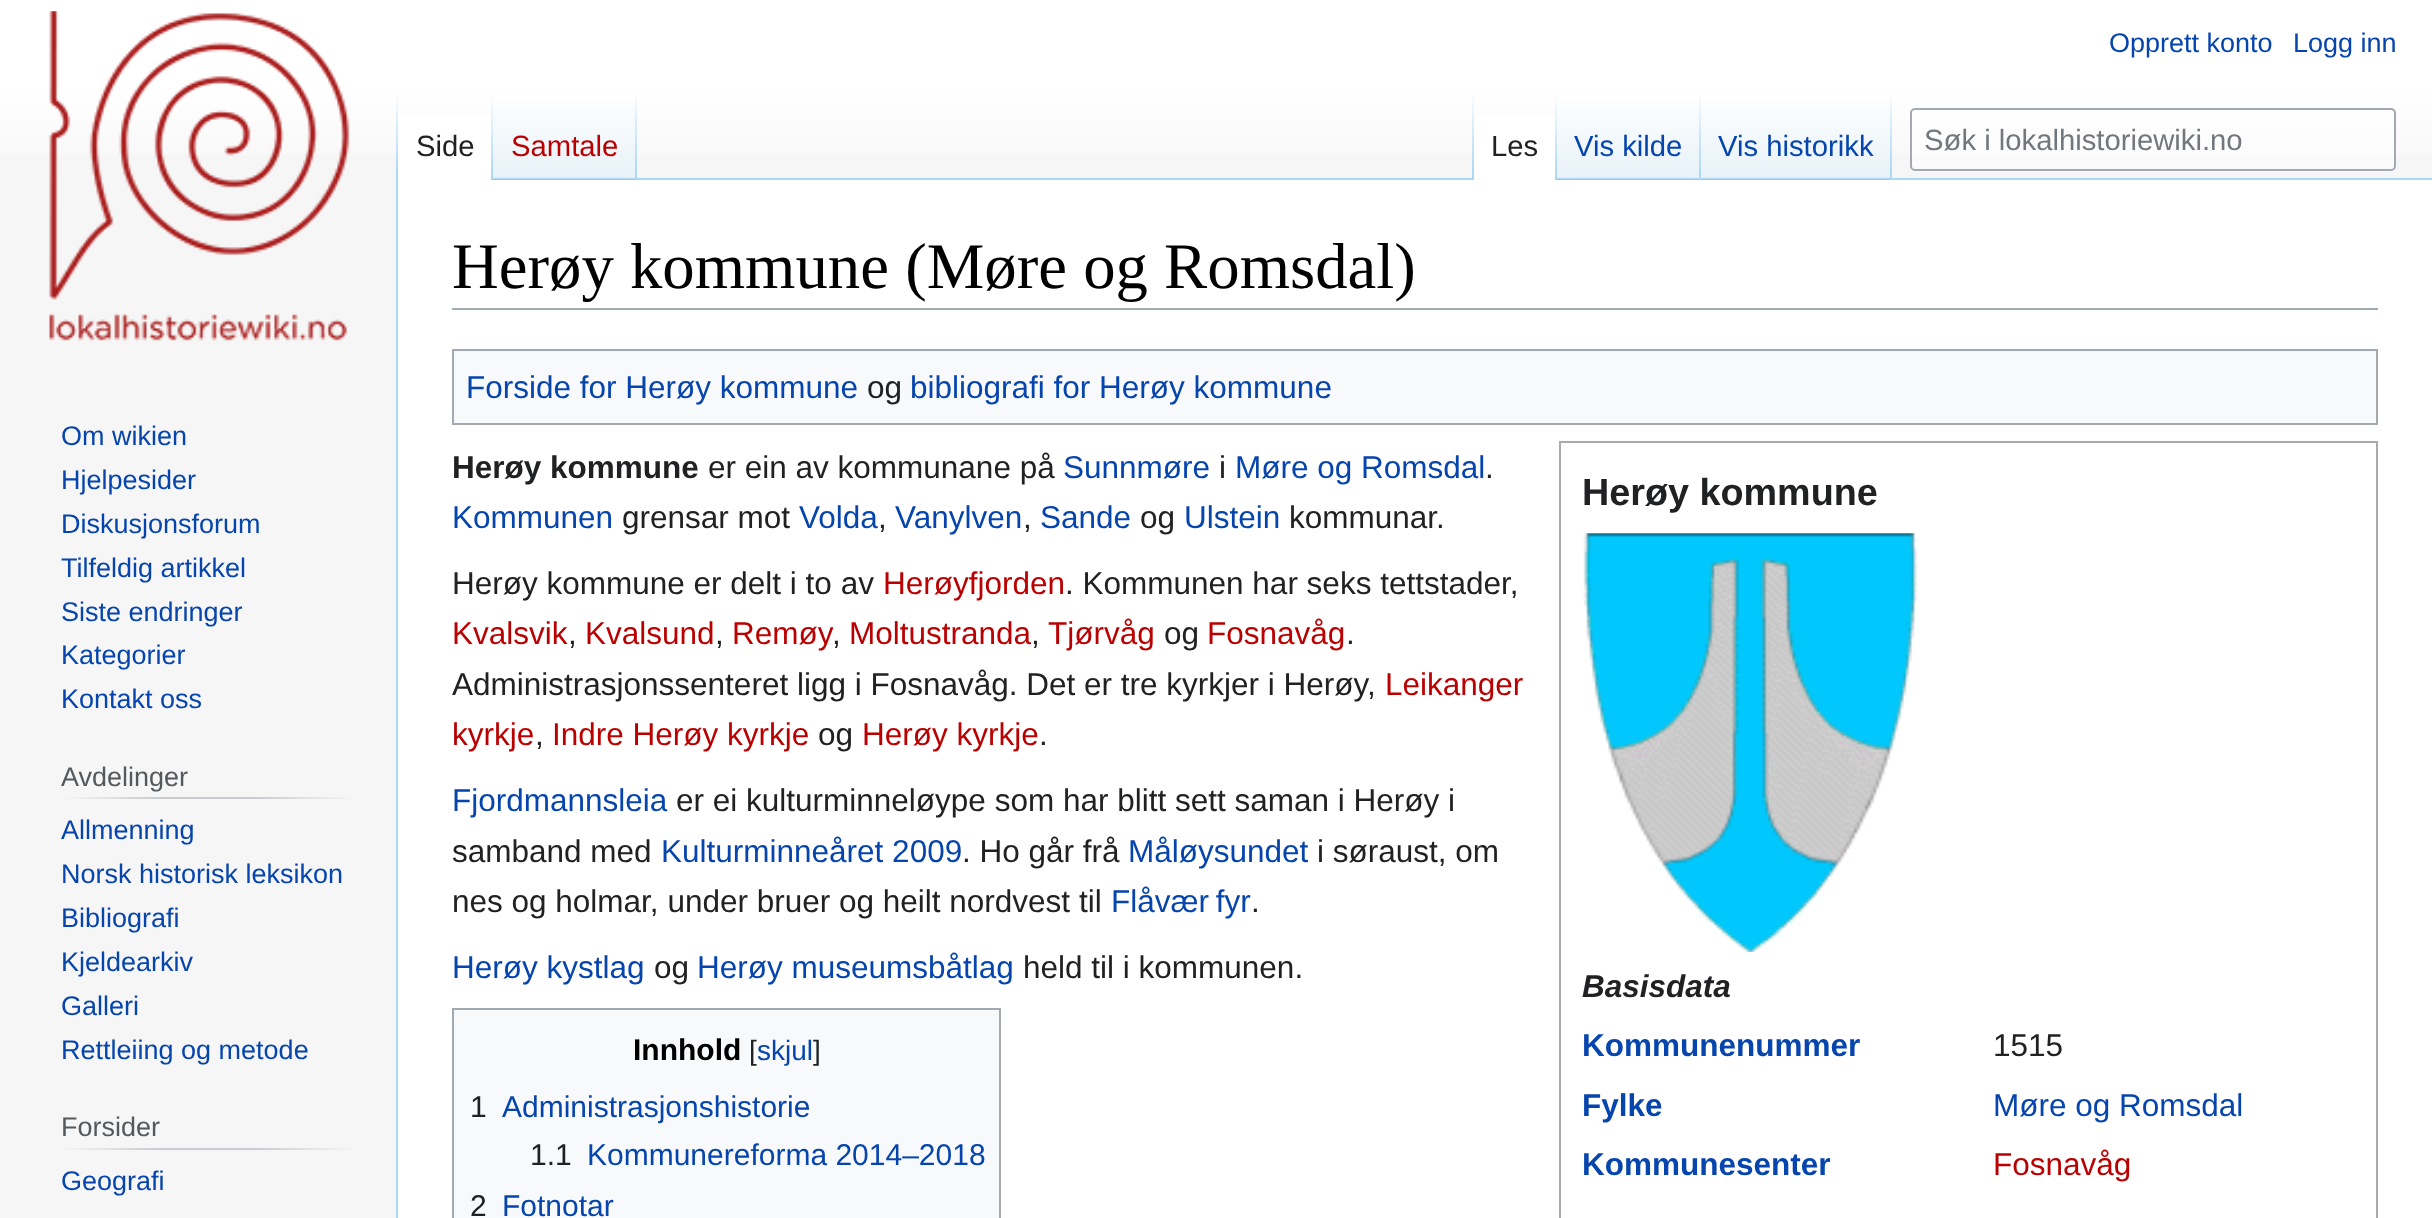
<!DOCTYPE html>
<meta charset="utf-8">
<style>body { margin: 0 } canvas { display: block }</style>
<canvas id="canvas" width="2432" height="1218"></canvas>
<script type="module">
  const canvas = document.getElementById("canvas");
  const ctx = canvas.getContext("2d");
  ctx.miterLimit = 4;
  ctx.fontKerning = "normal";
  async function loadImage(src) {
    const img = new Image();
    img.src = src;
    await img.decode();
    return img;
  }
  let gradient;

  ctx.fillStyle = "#f6f6f6";
  ctx.fillRect(0, 0, 2432, 1218);
  gradient = ctx.createLinearGradient(1216, 0, 1216, 180);
  gradient.addColorStop(0.5, "#ffffff");
  gradient.addColorStop(1, "#f6f6f6");
  ctx.fillStyle = gradient;
  ctx.fillRect(0, 0, 2432, 155);
  ctx.font = "27px Liberation Sans";
  ctx.fillStyle = "#0645ad";
  ctx.fillText("Opprett konto", 2109, 52);
  ctx.fillText("Logg inn", 2293, 52);
  ctx.fillStyle = "#a7d7f9";
  ctx.fillRect(396, 178, 2, 1040);
  gradient = ctx.createLinearGradient(397, 90, 397, 180);
  gradient.addColorStop(0, "rgba(167, 215, 249, 0)");
  gradient.addColorStop(1, "#a7d7f9");
  ctx.fillStyle = gradient;
  ctx.fillRect(396, 90, 2, 90);
  ctx.fillStyle = "#ffffff";
  ctx.fillRect(398, 115, 93, 65);
  gradient = ctx.createLinearGradient(492, 90, 492, 180);
  gradient.addColorStop(0, "#ffffff");
  gradient.addColorStop(1, "#a7d7f9");
  ctx.fillStyle = gradient;
  ctx.fillRect(491, 90, 2, 90);
  ctx.font = "29.25px Liberation Sans";
  ctx.fillStyle = "#202122";
  ctx.fillText("Side", 416, 156);
  gradient = ctx.createLinearGradient(565, 180, 565, 90);
  gradient.addColorStop(0, "#77c1f6");
  gradient.addColorStop(0.03, "#e8f2f8");
  gradient.addColorStop(1, "#ffffff");
  ctx.fillStyle = gradient;
  ctx.fillRect(493, 103, 144, 77);
  gradient = ctx.createLinearGradient(636, 90, 636, 180);
  gradient.addColorStop(0, "rgba(167, 215, 249, 0)");
  gradient.addColorStop(1, "#a7d7f9");
  ctx.fillStyle = gradient;
  ctx.fillRect(635, 90, 2, 90);
  ctx.fillStyle = "#ba0000";
  ctx.fillText("Samtale", 511, 156);
  ctx.fillStyle = "#a7d7f9";
  ctx.fillRect(637, 178, 1795, 2);
  gradient = ctx.createLinearGradient(1473, 90, 1473, 180);
  gradient.addColorStop(0, "rgba(167, 215, 249, 0)");
  gradient.addColorStop(1, "#a7d7f9");
  ctx.fillStyle = gradient;
  ctx.fillRect(1472, 90, 2, 90);
  ctx.fillStyle = "#ffffff";
  ctx.fillRect(1474, 115, 81, 65);
  gradient = ctx.createLinearGradient(1556, 90, 1556, 180);
  gradient.addColorStop(0, "#ffffff");
  gradient.addColorStop(1, "#a7d7f9");
  ctx.fillStyle = gradient;
  ctx.fillRect(1555, 90, 2, 90);
  ctx.fillStyle = "#202122";
  ctx.fillText("Les", 1491, 156);
  gradient = ctx.createLinearGradient(1629, 180, 1629, 90);
  gradient.addColorStop(0, "#77c1f6");
  gradient.addColorStop(0.03, "#e8f2f8");
  gradient.addColorStop(1, "#ffffff");
  ctx.fillStyle = gradient;
  ctx.fillRect(1557, 103, 144, 77);
  gradient = ctx.createLinearGradient(1700, 90, 1700, 180);
  gradient.addColorStop(0, "rgba(167, 215, 249, 0)");
  gradient.addColorStop(1, "#a7d7f9");
  ctx.fillStyle = gradient;
  ctx.fillRect(1699, 90, 2, 90);
  ctx.fillStyle = "#0645ad";
  ctx.fillText("Vis kilde", 1574, 156);
  gradient = ctx.createLinearGradient(1797, 180, 1797, 90);
  gradient.addColorStop(0, "#77c1f6");
  gradient.addColorStop(0.03, "#e8f2f8");
  gradient.addColorStop(1, "#ffffff");
  ctx.fillStyle = gradient;
  ctx.fillRect(1701, 103, 191, 77);
  gradient = ctx.createLinearGradient(1891, 90, 1891, 180);
  gradient.addColorStop(0, "rgba(167, 215, 249, 0)");
  gradient.addColorStop(1, "#a7d7f9");
  ctx.fillStyle = gradient;
  ctx.fillRect(1890, 90, 2, 90);
  ctx.fillStyle = "#0645ad";
  ctx.fillText("Vis historikk", 1718, 156);
  ctx.fillStyle = "rgba(255, 255, 255, 0.5)";
  ctx.beginPath();
  ctx.roundRect(1911, 109, 484, 61, 4);
  ctx.fill();
  ctx.strokeStyle = "#a2a9b1";
  ctx.lineWidth = 2;
  ctx.stroke();
  ctx.fillStyle = "#72777d";
  ctx.fillText("Søk i lokalhistoriewiki.no", 1924, 150);
  ctx.drawImage(await loadImage("img1.png"), 49, 11, 301, 330);
  ctx.font = "27px Liberation Sans";
  ctx.fillStyle = "#0645ad";
  ctx.fillText("Om wikien", 61, 445);
  ctx.fillText("Hjelpesider", 61, 489);
  ctx.fillText("Diskusjonsforum", 61, 533);
  ctx.fillText("Tilfeldig artikkel", 61, 577);
  ctx.fillText("Siste endringer", 61, 621);
  ctx.fillText("Kategorier", 61, 664);
  ctx.fillText("Kontakt oss", 61, 708);
  gradient = ctx.createLinearGradient(61, 798, 356, 798);
  gradient.addColorStop(0, "#f6f6f6");
  gradient.addColorStop(0.33, "#c8ccd1");
  gradient.addColorStop(0.66, "#c8ccd1");
  gradient.addColorStop(1, "#f6f6f6");
  ctx.fillStyle = gradient;
  ctx.fillRect(61, 797, 295, 2);
  ctx.fillStyle = "#54595d";
  ctx.fillText("Avdelinger", 61, 786);
  ctx.fillStyle = "#0645ad";
  ctx.fillText("Allmenning", 61, 839);
  ctx.fillText("Norsk historisk leksikon", 61, 883);
  ctx.fillText("Bibliografi", 61, 927);
  ctx.fillText("Kjeldearkiv", 61, 971);
  ctx.fillText("Galleri", 61, 1015);
  ctx.fillText("Rettleiing og metode", 61, 1059);
  gradient = ctx.createLinearGradient(61, 1149, 356, 1149);
  gradient.addColorStop(0, "#f6f6f6");
  gradient.addColorStop(0.33, "#c8ccd1");
  gradient.addColorStop(0.66, "#c8ccd1");
  gradient.addColorStop(1, "#f6f6f6");
  ctx.fillStyle = gradient;
  ctx.fillRect(61, 1148, 295, 2);
  ctx.fillStyle = "#54595d";
  ctx.fillText("Forsider", 61, 1136);
  ctx.fillStyle = "#0645ad";
  ctx.fillText("Geografi", 61, 1190);
  ctx.fillStyle = "#ffffff";
  ctx.fillRect(398, 180, 2034, 1038);
  ctx.fillStyle = "#a2a9b1";
  ctx.fillRect(452, 308, 1926, 2);
  ctx.font = "64.75px Liberation Serif";
  ctx.fillStyle = "#000000";
  ctx.fillText("Herøy kommune (Møre og Romsdal)", 452, 288);
  ctx.fillStyle = "#f8f9fa";
  ctx.beginPath();
  ctx.rect(453, 350, 1924, 74);
  ctx.fill();
  ctx.stroke();
  ctx.font = "31.5px Liberation Sans";
  ctx.fillStyle = "#0645ad";
  ctx.fillText("Forside for Herøy kommune", 466, 398);
  ctx.fillStyle = "#202122";
  ctx.fillText("og", 867, 398);
  ctx.fillStyle = "#0645ad";
  ctx.fillText("bibliografi for Herøy kommune", 910, 398);
  ctx.font = "bold 31.5px Liberation Sans";
  ctx.fillStyle = "#202122";
  ctx.fillText("Herøy kommune", 452, 478);
  ctx.font = "31.5px Liberation Sans";
  ctx.fillText("er ein av kommunane på", 708, 478);
  ctx.fillStyle = "#0645ad";
  ctx.fillText("Sunnmøre", 1063, 478);
  ctx.fillStyle = "#202122";
  ctx.fillText("i", 1219, 478);
  ctx.fillStyle = "#0645ad";
  ctx.fillText("Møre og Romsdal", 1235, 478);
  ctx.fillStyle = "#202122";
  ctx.fillText(".", 1485, 478);
  ctx.fillStyle = "#0645ad";
  ctx.fillText("Kommunen", 452, 528);
  ctx.fillStyle = "#202122";
  ctx.fillText("grensar mot", 622, 528);
  ctx.fillStyle = "#0645ad";
  ctx.fillText("Volda", 799, 528);
  ctx.fillStyle = "#202122";
  ctx.fillText(",", 878, 528);
  ctx.fillStyle = "#0645ad";
  ctx.fillText("Vanylven", 895, 528);
  ctx.fillStyle = "#202122";
  ctx.fillText(",", 1023, 528);
  ctx.fillStyle = "#0645ad";
  ctx.fillText("Sande", 1040, 528);
  ctx.fillStyle = "#202122";
  ctx.fillText("og", 1140, 528);
  ctx.fillStyle = "#0645ad";
  ctx.fillText("Ulstein", 1184, 528);
  ctx.fillStyle = "#202122";
  ctx.fillText("kommunar.", 1289, 528);
  ctx.strokeStyle = "#aaaaaa";
  ctx.strokeRect(1560, 442, 817, 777);
  ctx.font = "bold 37.75px Liberation Sans";
  ctx.fillText("Herøy kommune", 1582, 505);
  ctx.drawImage(await loadImage("img2.png"), 1583, 533, 335, 419);
  ctx.font = "italic bold 31.5px Liberation Sans";
  ctx.fillText("Basisdata", 1582, 997);
  ctx.font = "bold 31.5px Liberation Sans";
  ctx.fillStyle = "#0645ad";
  ctx.fillText("Kommunenummer", 1582, 1056);
  ctx.font = "31.5px Liberation Sans";
  ctx.fillStyle = "#202122";
  ctx.fillText("1515", 1993, 1056);
  ctx.font = "bold 31.5px Liberation Sans";
  ctx.fillStyle = "#0645ad";
  ctx.fillText("Fylke", 1582, 1116);
  ctx.font = "31.5px Liberation Sans";
  ctx.fillText("Møre og Romsdal", 1993, 1116);
  ctx.font = "bold 31.5px Liberation Sans";
  ctx.fillText("Kommunesenter", 1582, 1175);
  ctx.font = "31.5px Liberation Sans";
  ctx.fillStyle = "#ba0000";
  ctx.fillText("Fosnavåg", 1993, 1175);
  ctx.fillStyle = "#202122";
  ctx.fillText("Herøy kommune er delt i to av", 452, 594);
  ctx.fillStyle = "#ba0000";
  ctx.fillText("Herøyfjorden", 883, 594);
  ctx.fillStyle = "#202122";
  ctx.fillText(". Kommunen har seks tettstader,", 1065, 594);
  ctx.fillStyle = "#ba0000";
  ctx.fillText("Kvalsvik", 452, 644);
  ctx.fillStyle = "#202122";
  ctx.fillText(",", 568, 644);
  ctx.fillStyle = "#ba0000";
  ctx.fillText("Kvalsund", 585, 644);
  ctx.fillStyle = "#202122";
  ctx.fillText(",", 715, 644);
  ctx.fillStyle = "#ba0000";
  ctx.fillText("Remøy", 732, 644);
  ctx.fillStyle = "#202122";
  ctx.fillText(",", 832, 644);
  ctx.fillStyle = "#ba0000";
  ctx.fillText("Moltustranda", 849, 644);
  ctx.fillStyle = "#202122";
  ctx.fillText(",", 1031, 644);
  ctx.fillStyle = "#ba0000";
  ctx.fillText("Tjørvåg", 1048, 644);
  ctx.fillStyle = "#202122";
  ctx.fillText("og", 1164, 644);
  ctx.fillStyle = "#ba0000";
  ctx.fillText("Fosnavåg", 1207, 644);
  ctx.fillStyle = "#202122";
  ctx.fillText(".", 1346, 644);
  ctx.fillText("Administrasjonssenteret ligg i Fosnavåg. Det er tre kyrkjer i Herøy,", 452, 695);
  ctx.fillStyle = "#ba0000";
  ctx.fillText("Leikanger", 1385, 695);
  ctx.fillText("kyrkje", 452, 745);
  ctx.fillStyle = "#202122";
  ctx.fillText(",", 535, 745);
  ctx.fillStyle = "#ba0000";
  ctx.fillText("Indre Herøy kyrkje", 552, 745);
  ctx.fillStyle = "#202122";
  ctx.fillText("og", 818, 745);
  ctx.fillStyle = "#ba0000";
  ctx.fillText("Herøy kyrkje", 862, 745);
  ctx.fillStyle = "#202122";
  ctx.fillText(".", 1039, 745);
  ctx.fillStyle = "#0645ad";
  ctx.fillText("Fjordmannsleia", 452, 811);
  ctx.fillStyle = "#202122";
  ctx.fillText("er ei kulturminneløype som har blitt sett saman i Herøy i", 676, 811);
  ctx.fillText("samband med", 452, 862);
  ctx.fillStyle = "#0645ad";
  ctx.fillText("Kulturminneåret 2009", 661, 862);
  ctx.fillStyle = "#202122";
  ctx.fillText(". Ho går frå", 962, 862);
  ctx.fillStyle = "#0645ad";
  ctx.fillText("Måløysundet", 1128, 862);
  ctx.fillStyle = "#202122";
  ctx.fillText("i søraust, om", 1317, 862);
  ctx.fillText("nes og holmar, under bruer og heilt nordvest til", 452, 912);
  ctx.wordSpacing = "-2px";
  ctx.fillStyle = "#0645ad";
  ctx.fillText("Flåvær fyr", 1111, 912);
  ctx.wordSpacing = "0px";
  ctx.fillStyle = "#202122";
  ctx.fillText(".", 1251, 912);
  ctx.fillStyle = "#0645ad";
  ctx.fillText("Herøy kystlag", 452, 978);
  ctx.fillStyle = "#202122";
  ctx.fillText("og", 654, 978);
  ctx.fillStyle = "#0645ad";
  ctx.fillText("Herøy museumsbåtlag", 697, 978);
  ctx.fillStyle = "#202122";
  ctx.fillText("held til i kommunen.", 1023, 978);
  ctx.fillStyle = "#f8f9fa";
  ctx.beginPath();
  ctx.rect(453, 1009, 547, 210);
  ctx.fill();
  ctx.strokeStyle = "#a2a9b1";
  ctx.stroke();
  ctx.font = "bold 30px Liberation Sans";
  ctx.fillStyle = "#000000";
  ctx.fillText("Innhold", 633, 1060);
  ctx.font = "28px Liberation Sans";
  ctx.fillStyle = "#202122";
  ctx.fillText("[", 749, 1060);
  ctx.fillStyle = "#0645ad";
  ctx.fillText("skjul", 757, 1060);
  ctx.fillStyle = "#202122";
  ctx.fillText("]", 813, 1060);
  ctx.font = "30px Liberation Sans";
  ctx.fillText("1", 470, 1117);
  ctx.fillStyle = "#0645ad";
  ctx.fillText("Administrasjonshistorie", 502, 1117);
  ctx.fillStyle = "#202122";
  ctx.fillText("1.1", 530, 1165);
  ctx.fillStyle = "#0645ad";
  ctx.fillText("Kommunereforma 2014–2018", 587, 1165);
  ctx.fillStyle = "#202122";
  ctx.fillText("2", 470, 1216);
  ctx.fillStyle = "#0645ad";
  ctx.fillText("Fotnotar", 502, 1216);
</script>
